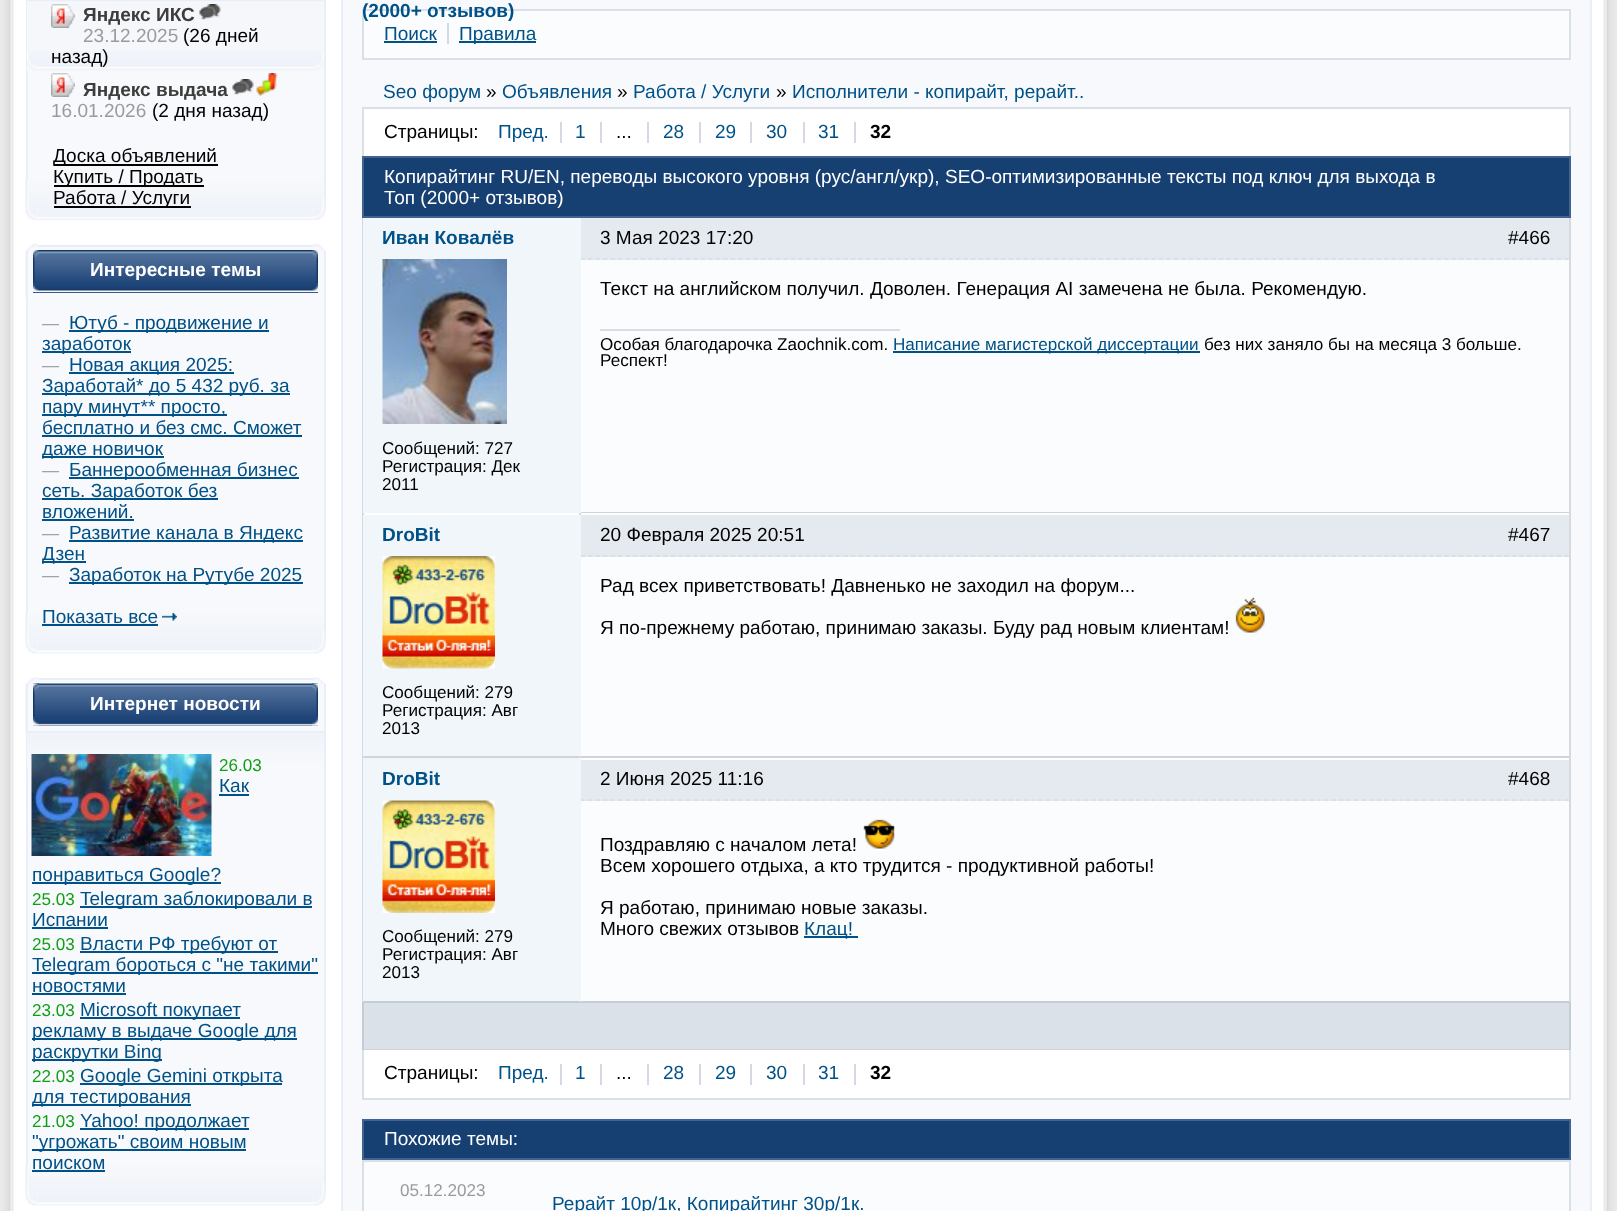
<!DOCTYPE html>
<meta charset="utf-8">
<style>body { margin: 0 } canvas { display: block }</style>
<canvas id="canvas" width="1617" height="1211"></canvas>
<script type="module">
  const canvas = document.getElementById("canvas");
  const ctx = canvas.getContext("2d");
  ctx.miterLimit = 4;
  ctx.fontKerning = "normal";
  async function loadImage(src) {
    const img = new Image();
    img.src = src;
    await img.decode();
    return img;
  }

  ctx.fillStyle = "#ffffff";
  ctx.fillRect(0, 0, 1617, 1211);
  ctx.drawImage(await loadImage("img1.png"), 0, 0, 14, 1211);
  ctx.drawImage(await loadImage("img2.png"), 1603, 0, 14, 1211);
  ctx.fillStyle = "#f8f9fc";
  ctx.fillRect(28, 71, 296, 138);
  ctx.drawImage(await loadImage("img3.png"), 25, 179, 299, 29);
  ctx.fillStyle = "#e9eef8";
  ctx.fillRect(324, 0, 2, 209);
  ctx.fillRect(26, 0, 2, 180);
  ctx.drawImage(await loadImage("img4.png"), 27, 1, 297, 1);
  ctx.fillRect(27, 0, 297, 1);
  ctx.fillStyle = "#f6f7fb";
  ctx.fillRect(27, 2, 297, 69);
  ctx.drawImage(await loadImage("img5.png"), 27, 51, 297, 19);
  ctx.drawImage(await loadImage("img6.png"), 51, 4, 24, 24);
  ctx.font = "bold 19.05px Liberation Sans";
  ctx.fillStyle = "#3d3d3d";
  ctx.fillText("Яндекс ИКС", 83, 21);
  ctx.drawImage(await loadImage("img7.png"), 199, 4, 22, 16);
  ctx.font = "19.05px Liberation Sans";
  ctx.fillStyle = "#9b9b9b";
  ctx.fillText("23.12.2025", 83, 42);
  ctx.fillStyle = "#000000";
  ctx.fillText("(26 дней", 183, 42);
  ctx.fillText("назад)", 51, 63);
  ctx.drawImage(await loadImage("img8.png"), 51, 73, 24, 24);
  ctx.font = "bold 19.05px Liberation Sans";
  ctx.fillStyle = "#3d3d3d";
  ctx.fillText("Яндекс выдача", 83, 96);
  ctx.drawImage(await loadImage("img9.png"), 232, 79, 22, 16);
  ctx.drawImage(await loadImage("img10.png"), 256, 73, 22, 23);
  ctx.font = "19.05px Liberation Sans";
  ctx.fillStyle = "#9b9b9b";
  ctx.fillText("16.01.2026", 51, 117);
  ctx.fillStyle = "#000000";
  ctx.fillText("(2 дня назад)", 152, 117);
  ctx.fillRect(54, 164, 164, 2);
  ctx.fillText("Доска объявлений", 53, 162);
  ctx.fillRect(54, 185, 150, 2);
  ctx.fillText("Купить / Продать", 53, 183);
  ctx.fillRect(54, 206, 137, 2);
  ctx.fillText("Работа / Услуги", 53, 204);
  ctx.drawImage(await loadImage("img12.png"), 37, 208, 277, 12);
  ctx.drawImage(await loadImage("img11.png"), 25, 179, 13, 41);
  ctx.drawImage(await loadImage("img13.png"), 313, 196, 13, 24);
  ctx.fillStyle = "#f8f9fc";
  ctx.fillRect(28, 297, 296, 345);
  ctx.fillStyle = "#e9eef8";
  ctx.fillRect(26, 297, 2, 316);
  ctx.drawImage(await loadImage("img14.png"), 25, 244, 13, 54);
  ctx.fillStyle = "#f8f9fc";
  ctx.fillRect(38, 247, 276, 3);
  ctx.fillStyle = "#e9eef8";
  ctx.fillRect(38, 245, 276, 2);
  ctx.drawImage(await loadImage("img15.png"), 313, 244, 13, 7);
  ctx.fillStyle = "#f8f9fc";
  ctx.fillRect(28, 251, 296, 46);
  ctx.fillStyle = "#e9eef8";
  ctx.fillRect(26, 251, 2, 46);
  ctx.fillStyle = "#355888";
  ctx.fillRect(33, 292, 285, 1);
  ctx.drawImage(await loadImage("img16.png"), 33, 250, 285, 42);
  ctx.drawImage(await loadImage("img17.png"), 33, 250, 6, 41);
  ctx.font = "bold 19.05px Liberation Sans";
  ctx.fillStyle = "#ffffff";
  ctx.fillText("Интересные темы", 90, 276);
  ctx.drawImage(await loadImage("img18.png"), 312, 250, 6, 41);
  ctx.drawImage(await loadImage("img19.png"), 25, 613, 299, 29);
  ctx.fillStyle = "#e9eef8";
  ctx.fillRect(324, 251, 2, 391);
  ctx.font = "17.1px Liberation Sans";
  ctx.fillStyle = "#9b9b9b";
  ctx.fillText("—", 42, 329);
  ctx.fillStyle = "#005187";
  ctx.fillRect(69, 330, 200, 2);
  ctx.font = "19.05px Liberation Sans";
  ctx.fillText("Ютуб - продвижение и", 69, 329);
  ctx.fillRect(42, 351, 89, 2);
  ctx.fillText("заработок", 42, 350);
  ctx.font = "17.1px Liberation Sans";
  ctx.fillStyle = "#9b9b9b";
  ctx.fillText("—", 42, 371);
  ctx.fillStyle = "#005187";
  ctx.fillRect(69, 372, 165, 2);
  ctx.font = "19.05px Liberation Sans";
  ctx.fillText("Новая акция 2025:", 69, 371);
  ctx.fillRect(42, 393, 248, 2);
  ctx.fillText("Заработай* до 5 432 руб. за", 42, 392);
  ctx.fillRect(42, 414, 185, 2);
  ctx.fillText("пару минут** просто,", 42, 413);
  ctx.fillText("бесплатно и без смс. Сможет", 42, 434);
  ctx.fillRect(42, 435, 260, 2);
  ctx.fillRect(42, 456, 122, 2);
  ctx.fillText("даже новичок", 42, 455);
  ctx.font = "17.1px Liberation Sans";
  ctx.fillStyle = "#9b9b9b";
  ctx.fillText("—", 42, 476);
  ctx.fillStyle = "#005187";
  ctx.fillRect(69, 477, 230, 2);
  ctx.font = "19.05px Liberation Sans";
  ctx.fillText("Баннерообменная бизнес", 69, 476);
  ctx.fillRect(42, 498, 176, 2);
  ctx.fillText("сеть. Заработок без", 42, 497);
  ctx.fillText("вложений.", 42, 518);
  ctx.fillRect(42, 519, 92, 2);
  ctx.font = "17.1px Liberation Sans";
  ctx.fillStyle = "#9b9b9b";
  ctx.fillText("—", 42, 539);
  ctx.fillStyle = "#005187";
  ctx.fillRect(69, 540, 234, 2);
  ctx.font = "19.05px Liberation Sans";
  ctx.fillText("Развитие канала в Яндекс", 69, 539);
  ctx.fillRect(42, 561, 44, 2);
  ctx.fillText("Дзен", 42, 560);
  ctx.font = "17.1px Liberation Sans";
  ctx.fillStyle = "#9b9b9b";
  ctx.fillText("—", 42, 581);
  ctx.fillStyle = "#005187";
  ctx.fillRect(69, 582, 234, 2);
  ctx.font = "19.05px Liberation Sans";
  ctx.fillText("Заработок на Рутубе 2025", 69, 581);
  ctx.fillText("Показать все", 42, 623);
  ctx.fillRect(42, 624, 116, 2);
  ctx.drawImage(await loadImage("img20.png"), 162, 613, 15, 8);
  ctx.drawImage(await loadImage("img22.png"), 37, 642, 277, 12);
  ctx.drawImage(await loadImage("img21.png"), 25, 613, 13, 41);
  ctx.drawImage(await loadImage("img23.png"), 313, 630, 13, 24);
  ctx.fillStyle = "#e9eef8";
  ctx.fillRect(26, 731, 2, 434);
  ctx.fillRect(27, 731, 297, 2);
  ctx.drawImage(await loadImage("img24.png"), 25, 677, 13, 55);
  ctx.fillStyle = "#f8f9fc";
  ctx.fillRect(38, 680, 276, 4);
  ctx.fillStyle = "#e9eef8";
  ctx.fillRect(38, 678, 276, 2);
  ctx.drawImage(await loadImage("img25.png"), 313, 677, 13, 7);
  ctx.fillStyle = "#f8f9fc";
  ctx.fillRect(28, 684, 296, 47);
  ctx.fillStyle = "#e9eef8";
  ctx.fillRect(26, 684, 2, 47);
  ctx.fillStyle = "#355888";
  ctx.fillRect(33, 725, 285, 1);
  ctx.drawImage(await loadImage("img26.png"), 33, 683, 285, 43);
  ctx.drawImage(await loadImage("img27.png"), 33, 683, 6, 43);
  ctx.font = "bold 19.05px Liberation Sans";
  ctx.fillStyle = "#ffffff";
  ctx.fillText("Интернет новости", 90, 710);
  ctx.drawImage(await loadImage("img28.png"), 312, 683, 6, 43);
  ctx.fillStyle = "#f8f9fc";
  ctx.fillRect(28, 766, 296, 428);
  ctx.drawImage(await loadImage("img19.png"), 25, 1165, 299, 29);
  ctx.fillStyle = "#e9eef8";
  ctx.fillRect(324, 684, 2, 510);
  ctx.drawImage(await loadImage("img29.png"), 27, 733, 297, 33);
  ctx.drawImage(await loadImage("img30.png"), 31, 754, 181, 102);
  ctx.font = "17.1px Liberation Sans";
  ctx.fillStyle = "#109f14";
  ctx.fillText("26.03", 219, 771);
  ctx.font = "19.05px Liberation Sans";
  ctx.fillStyle = "#005187";
  ctx.fillText("Как", 219, 792);
  ctx.fillRect(219, 794, 30, 2);
  ctx.fillRect(32, 882, 189, 2);
  ctx.fillText("понравиться Google?", 32, 881);
  ctx.font = "17.1px Liberation Sans";
  ctx.fillStyle = "#109f14";
  ctx.fillText("25.03", 32, 905);
  ctx.fillStyle = "#005187";
  ctx.fillRect(80, 906, 232, 2);
  ctx.font = "19.05px Liberation Sans";
  ctx.fillText("Telegram заблокировали в", 80, 905);
  ctx.fillText("Испании", 32, 926);
  ctx.fillRect(32, 927, 76, 2);
  ctx.font = "17.1px Liberation Sans";
  ctx.fillStyle = "#109f14";
  ctx.fillText("25.03", 32, 950);
  ctx.fillStyle = "#005187";
  ctx.fillRect(80, 951, 198, 2);
  ctx.font = "19.05px Liberation Sans";
  ctx.fillText("Власти РФ требуют от", 80, 950);
  ctx.fillRect(32, 972, 286, 2);
  ctx.fillText("Telegram бороться с \"не такими\"", 32, 971);
  ctx.fillText("новостями", 32, 992);
  ctx.fillRect(32, 993, 94, 2);
  ctx.font = "17.1px Liberation Sans";
  ctx.fillStyle = "#109f14";
  ctx.fillText("23.03", 32, 1016);
  ctx.fillStyle = "#005187";
  ctx.fillRect(80, 1017, 160, 2);
  ctx.font = "19.05px Liberation Sans";
  ctx.fillText("Microsoft покупает", 80, 1016);
  ctx.fillRect(32, 1038, 265, 2);
  ctx.fillText("рекламу в выдаче Google для", 32, 1037);
  ctx.fillRect(32, 1059, 130, 2);
  ctx.fillText("раскрутки Bing", 32, 1058);
  ctx.font = "17.1px Liberation Sans";
  ctx.fillStyle = "#109f14";
  ctx.fillText("22.03", 32, 1082);
  ctx.fillStyle = "#005187";
  ctx.fillRect(80, 1083, 202, 2);
  ctx.font = "19.05px Liberation Sans";
  ctx.fillText("Google Gemini открыта", 80, 1082);
  ctx.fillRect(32, 1104, 159, 2);
  ctx.fillText("для тестирования", 32, 1103);
  ctx.font = "17.1px Liberation Sans";
  ctx.fillStyle = "#109f14";
  ctx.fillText("21.03", 32, 1127);
  ctx.fillStyle = "#005187";
  ctx.fillRect(80, 1128, 169, 2);
  ctx.font = "19.05px Liberation Sans";
  ctx.fillText("Yahoo! продолжает", 80, 1127);
  ctx.fillRect(32, 1149, 214, 2);
  ctx.fillText("\"угрожать\" своим новым", 32, 1148);
  ctx.fillText("поиском", 32, 1169);
  ctx.fillRect(32, 1170, 73, 2);
  ctx.drawImage(await loadImage("img22.png"), 37, 1194, 277, 12);
  ctx.drawImage(await loadImage("img31.png"), 25, 1165, 13, 41);
  ctx.drawImage(await loadImage("img23.png"), 313, 1182, 13, 24);
  ctx.fillStyle = "#f8f9fc";
  ctx.fillRect(343, 0, 1247, 1211);
  ctx.fillStyle = "#fbfcfd";
  ctx.beginPath();
  ctx.rect(363, 10, 1207, 49);
  ctx.fill();
  ctx.strokeStyle = "#dae0e7";
  ctx.lineWidth = 2;
  ctx.stroke();
  ctx.font = "bold 19.05px Liberation Sans";
  ctx.fillStyle = "#005187";
  ctx.fillText("(2000+ отзывов)", 362, 17);
  ctx.fillStyle = "#e9eef8";
  ctx.fillRect(1590, 0, 2, 1211);
  ctx.fillRect(341, 0, 2, 1211);
  ctx.font = "19.05px Liberation Sans";
  ctx.fillStyle = "#005187";
  ctx.fillText("Поиск", 384, 40);
  ctx.fillStyle = "#d4dae3";
  ctx.fillRect(447, 23, 2, 21);
  ctx.fillStyle = "#005187";
  ctx.fillRect(384, 41, 53, 2);
  ctx.fillRect(459, 41, 77, 2);
  ctx.fillText("Правила", 459, 40);
  ctx.fillText("Seo форум", 383, 98);
  ctx.fillStyle = "#000000";
  ctx.fillText("»", 486, 98);
  ctx.fillStyle = "#005187";
  ctx.fillText("Объявления", 502, 98);
  ctx.fillStyle = "#000000";
  ctx.fillText("»", 617, 98);
  ctx.fillStyle = "#005187";
  ctx.fillText("Работа / Услуги", 633, 98);
  ctx.fillStyle = "#000000";
  ctx.fillText("»", 776, 98);
  ctx.fillStyle = "#005187";
  ctx.fillText("Исполнители - копирайт, рерайт..", 792, 98);
  ctx.fillStyle = "#ffffff";
  ctx.fillRect(364, 109, 1205, 47);
  ctx.fillStyle = "#dae0e7";
  ctx.fillRect(362, 107, 1209, 2);
  ctx.fillRect(1569, 107, 2, 49);
  ctx.fillRect(362, 107, 2, 49);
  ctx.fillStyle = "#000000";
  ctx.fillText("Страницы:", 384, 138);
  ctx.fillStyle = "#005187";
  ctx.fillText("Пред.", 498, 138);
  ctx.fillStyle = "#d4dae3";
  ctx.fillRect(560, 122, 2, 21);
  ctx.fillStyle = "#005187";
  ctx.fillText("1", 575, 138);
  ctx.fillStyle = "#000000";
  ctx.fillText("...", 616, 138);
  ctx.fillStyle = "#d4dae3";
  ctx.fillRect(600, 122, 2, 21);
  ctx.fillStyle = "#005187";
  ctx.fillText("28", 663, 138);
  ctx.fillStyle = "#d4dae3";
  ctx.fillRect(647, 122, 2, 21);
  ctx.fillStyle = "#005187";
  ctx.fillText("29", 715, 138);
  ctx.fillStyle = "#d4dae3";
  ctx.fillRect(699, 122, 2, 21);
  ctx.fillStyle = "#005187";
  ctx.fillText("30", 766, 138);
  ctx.fillStyle = "#d4dae3";
  ctx.fillRect(750, 122, 2, 21);
  ctx.fillStyle = "#005187";
  ctx.fillText("31", 818, 138);
  ctx.fillStyle = "#d4dae3";
  ctx.fillRect(803, 122, 2, 21);
  ctx.font = "bold 19.05px Liberation Sans";
  ctx.fillStyle = "#000000";
  ctx.fillText("32", 870, 138);
  ctx.fillStyle = "#d4dae3";
  ctx.fillRect(854, 122, 2, 21);
  ctx.fillStyle = "#163f72";
  ctx.beginPath();
  ctx.rect(363, 157, 1207, 60);
  ctx.fill();
  ctx.strokeStyle = "#406390";
  ctx.stroke();
  ctx.font = "19.05px Liberation Sans";
  ctx.fillStyle = "#ffffff";
  ctx.fillText("Копирайтинг RU/EN, переводы высокого уровня (рус/англ/укр), SEO-оптимизированные тексты под ключ для выхода в", 384, 183);
  ctx.fillText("Топ (2000+ отзывов)", 384, 204);
  ctx.fillStyle = "#d0d3d8";
  ctx.fillRect(581, 512, 990, 1);
  ctx.fillStyle = "#d5dae0";
  ctx.fillRect(362, 218, 1, 295);
  ctx.fillStyle = "#e5eaf0";
  ctx.fillRect(581, 218, 988, 42);
  ctx.beginPath();
  ctx.moveTo(580.5, 259);
  ctx.lineTo(1569, 259);
  ctx.strokeStyle = "#d6dde5";
  ctx.lineWidth = 1.5;
  ctx.setLineDash([4.5, 3.01]);
  ctx.stroke();
  ctx.fillStyle = "#f1f6fa";
  ctx.fillRect(363, 218, 218, 295);
  ctx.font = "bold 19.05px Liberation Sans";
  ctx.fillStyle = "#005187";
  ctx.fillText("Иван Ковалёв", 382, 244);
  ctx.drawImage(await loadImage("img32.png"), 382, 259, 125, 165);
  ctx.font = "17.1px Liberation Sans";
  ctx.fillStyle = "#000000";
  ctx.fillText("Сообщений: 727", 382, 454);
  ctx.fillText("Регистрация: Дек", 382, 472);
  ctx.fillText("2011", 382, 490);
  ctx.fillStyle = "#fbfcfd";
  ctx.fillRect(581, 260, 988, 252);
  ctx.fillStyle = "#d5dae0";
  ctx.fillRect(1569, 218, 2, 295);
  ctx.font = "19.05px Liberation Sans";
  ctx.fillStyle = "#000000";
  ctx.fillText("3 Мая 2023 17:20", 600, 244);
  ctx.fillText("#466", 1508, 244);
  ctx.fillText("Текст на английском получил. Доволен. Генерация AI замечена не была. Рекомендую.", 600, 295);
  ctx.fillStyle = "#d6dde5";
  ctx.fillRect(600, 329, 300, 2);
  ctx.font = "17.1px Liberation Sans";
  ctx.fillStyle = "#000000";
  ctx.fillText("Особая благодарочка Zaochnik.com.", 600, 350);
  ctx.fillStyle = "#005187";
  ctx.fillRect(893, 351, 307, 2);
  ctx.fillText("Написание магистерской диссертации", 893, 350);
  ctx.fillStyle = "#000000";
  ctx.fillText("без них заняло бы на месяца 3 больше.", 1204, 350);
  ctx.fillText("Респект!", 600, 366);
  ctx.fillStyle = "#ffffff";
  ctx.fillRect(362, 513, 1209, 2);
  ctx.fillStyle = "#d0d3d8";
  ctx.fillRect(362, 756, 1209, 2);
  ctx.fillStyle = "#e5eaf0";
  ctx.fillRect(581, 515, 988, 42);
  ctx.beginPath();
  ctx.moveTo(580.5, 556);
  ctx.lineTo(1569, 556);
  ctx.stroke();
  ctx.fillStyle = "#d6dde5";
  ctx.fillRect(579, 513, 2, 245);
  ctx.fillStyle = "#d5dae0";
  ctx.fillRect(362, 513, 2, 245);
  ctx.fillStyle = "#f1f6fa";
  ctx.fillRect(363, 515, 218, 241);
  ctx.font = "bold 19.05px Liberation Sans";
  ctx.fillStyle = "#005187";
  ctx.fillText("DroBit", 382, 541);
  ctx.drawImage(await loadImage("img33.png"), 382, 556, 113, 113);
  ctx.font = "17.1px Liberation Sans";
  ctx.fillStyle = "#000000";
  ctx.fillText("Сообщений: 279", 382, 698);
  ctx.fillText("Регистрация: Авг", 382, 716);
  ctx.fillText("2013", 382, 734);
  ctx.fillStyle = "#fbfcfd";
  ctx.fillRect(581, 557, 988, 199);
  ctx.fillStyle = "#d5dae0";
  ctx.fillRect(1569, 513, 2, 245);
  ctx.font = "19.05px Liberation Sans";
  ctx.fillStyle = "#000000";
  ctx.fillText("20 Февраля 2025 20:51", 600, 541);
  ctx.fillText("#467", 1508, 541);
  ctx.fillText("Рад всех приветствовать! Давненько не заходил на форум...", 600, 592);
  ctx.fillText("Я по-прежнему работаю, принимаю заказы. Буду рад новым клиентам!", 600, 634);
  ctx.drawImage(await loadImage("img34.png"), 1235, 597, 30, 36);
  ctx.fillStyle = "#ffffff";
  ctx.fillRect(581, 758, 990, 2);
  ctx.fillStyle = "#d0d3d8";
  ctx.fillRect(362, 1049, 1209, 1);
  ctx.fillStyle = "#c4ccd6";
  ctx.fillRect(362, 1001, 1209, 2);
  ctx.fillStyle = "#d6dde5";
  ctx.fillRect(579, 1001, 2, 1);
  ctx.fillStyle = "#c4ccd6";
  ctx.fillRect(362, 1001, 2, 49);
  ctx.fillStyle = "#d5dae0";
  ctx.fillRect(362, 758, 2, 244);
  ctx.fillStyle = "#e5eaf0";
  ctx.fillRect(581, 760, 988, 41);
  ctx.beginPath();
  ctx.moveTo(580.5, 800);
  ctx.lineTo(1569, 800);
  ctx.stroke();
  ctx.fillStyle = "#f1f6fa";
  ctx.fillRect(363, 758, 218, 243);
  ctx.font = "bold 19.05px Liberation Sans";
  ctx.fillStyle = "#005187";
  ctx.fillText("DroBit", 382, 785);
  ctx.drawImage(await loadImage("img35.png"), 382, 800, 113, 113);
  ctx.font = "17.1px Liberation Sans";
  ctx.fillStyle = "#000000";
  ctx.fillText("Сообщений: 279", 382, 942);
  ctx.fillText("Регистрация: Авг", 382, 960);
  ctx.fillText("2013", 382, 978);
  ctx.fillStyle = "#fbfcfd";
  ctx.fillRect(581, 801, 988, 200);
  ctx.fillStyle = "#c4ccd6";
  ctx.fillRect(1569, 1001, 2, 49);
  ctx.fillStyle = "#d5dae0";
  ctx.fillRect(1569, 758, 2, 244);
  ctx.font = "19.05px Liberation Sans";
  ctx.fillStyle = "#000000";
  ctx.fillText("2 Июня 2025 11:16", 600, 785);
  ctx.fillText("#468", 1508, 785);
  ctx.fillText("Поздравляю с началом лета!", 600, 851);
  ctx.drawImage(await loadImage("img36.png"), 863, 819, 32, 30);
  ctx.fillText("Всем хорошего отдыха, а кто трудится - продуктивной работы!", 600, 872);
  ctx.fillText("Я работаю, принимаю новые заказы.", 600, 914);
  ctx.fillText("Много свежих отзывов", 600, 935);
  ctx.fillStyle = "#005187";
  ctx.fillRect(804, 936, 54, 2);
  ctx.fillText("Клац!", 804, 935);
  ctx.fillStyle = "#dae1e9";
  ctx.fillRect(364, 1003, 1205, 46);
  ctx.fillStyle = "#ffffff";
  ctx.fillRect(364, 1050, 1205, 48);
  ctx.fillStyle = "#dae0e7";
  ctx.fillRect(1569, 1050, 2, 50);
  ctx.fillRect(362, 1098, 1209, 2);
  ctx.fillRect(362, 1050, 2, 50);
  ctx.fillStyle = "#000000";
  ctx.fillText("Страницы:", 384, 1079);
  ctx.fillStyle = "#005187";
  ctx.fillText("Пред.", 498, 1079);
  ctx.fillStyle = "#d4dae3";
  ctx.fillRect(560, 1064, 2, 21);
  ctx.fillStyle = "#005187";
  ctx.fillText("1", 575, 1079);
  ctx.fillStyle = "#000000";
  ctx.fillText("...", 616, 1079);
  ctx.fillStyle = "#d4dae3";
  ctx.fillRect(600, 1064, 2, 21);
  ctx.fillStyle = "#005187";
  ctx.fillText("28", 663, 1079);
  ctx.fillStyle = "#d4dae3";
  ctx.fillRect(647, 1064, 2, 21);
  ctx.fillStyle = "#005187";
  ctx.fillText("29", 715, 1079);
  ctx.fillStyle = "#d4dae3";
  ctx.fillRect(699, 1064, 2, 21);
  ctx.fillStyle = "#005187";
  ctx.fillText("30", 766, 1079);
  ctx.fillStyle = "#d4dae3";
  ctx.fillRect(750, 1064, 2, 21);
  ctx.fillStyle = "#005187";
  ctx.fillText("31", 818, 1079);
  ctx.fillStyle = "#d4dae3";
  ctx.fillRect(803, 1064, 2, 21);
  ctx.font = "bold 19.05px Liberation Sans";
  ctx.fillStyle = "#000000";
  ctx.fillText("32", 870, 1079);
  ctx.fillStyle = "#d4dae3";
  ctx.fillRect(854, 1064, 2, 21);
  ctx.fillStyle = "#163f72";
  ctx.beginPath();
  ctx.rect(363, 1120, 1207, 39);
  ctx.fill();
  ctx.strokeStyle = "#406390";
  ctx.lineWidth = 2;
  ctx.setLineDash([]);
  ctx.stroke();
  ctx.font = "19.05px Liberation Sans";
  ctx.fillStyle = "#ffffff";
  ctx.fillText("Похожие темы:", 384, 1145);
  ctx.fillStyle = "#fbfcfd";
  ctx.beginPath();
  ctx.rect(363, 1161, 1207, 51);
  ctx.fill();
  ctx.strokeStyle = "#dae0e7";
  ctx.stroke();
  ctx.font = "17.1px Liberation Sans";
  ctx.fillStyle = "#9b9b9b";
  ctx.fillText("05.12.2023", 400, 1196);
  ctx.font = "19.05px Liberation Sans";
  ctx.fillStyle = "#005187";
  ctx.fillText("Рерайт 10р/1к, Копирайтинг 30р/1к.", 552, 1210);
</script>
